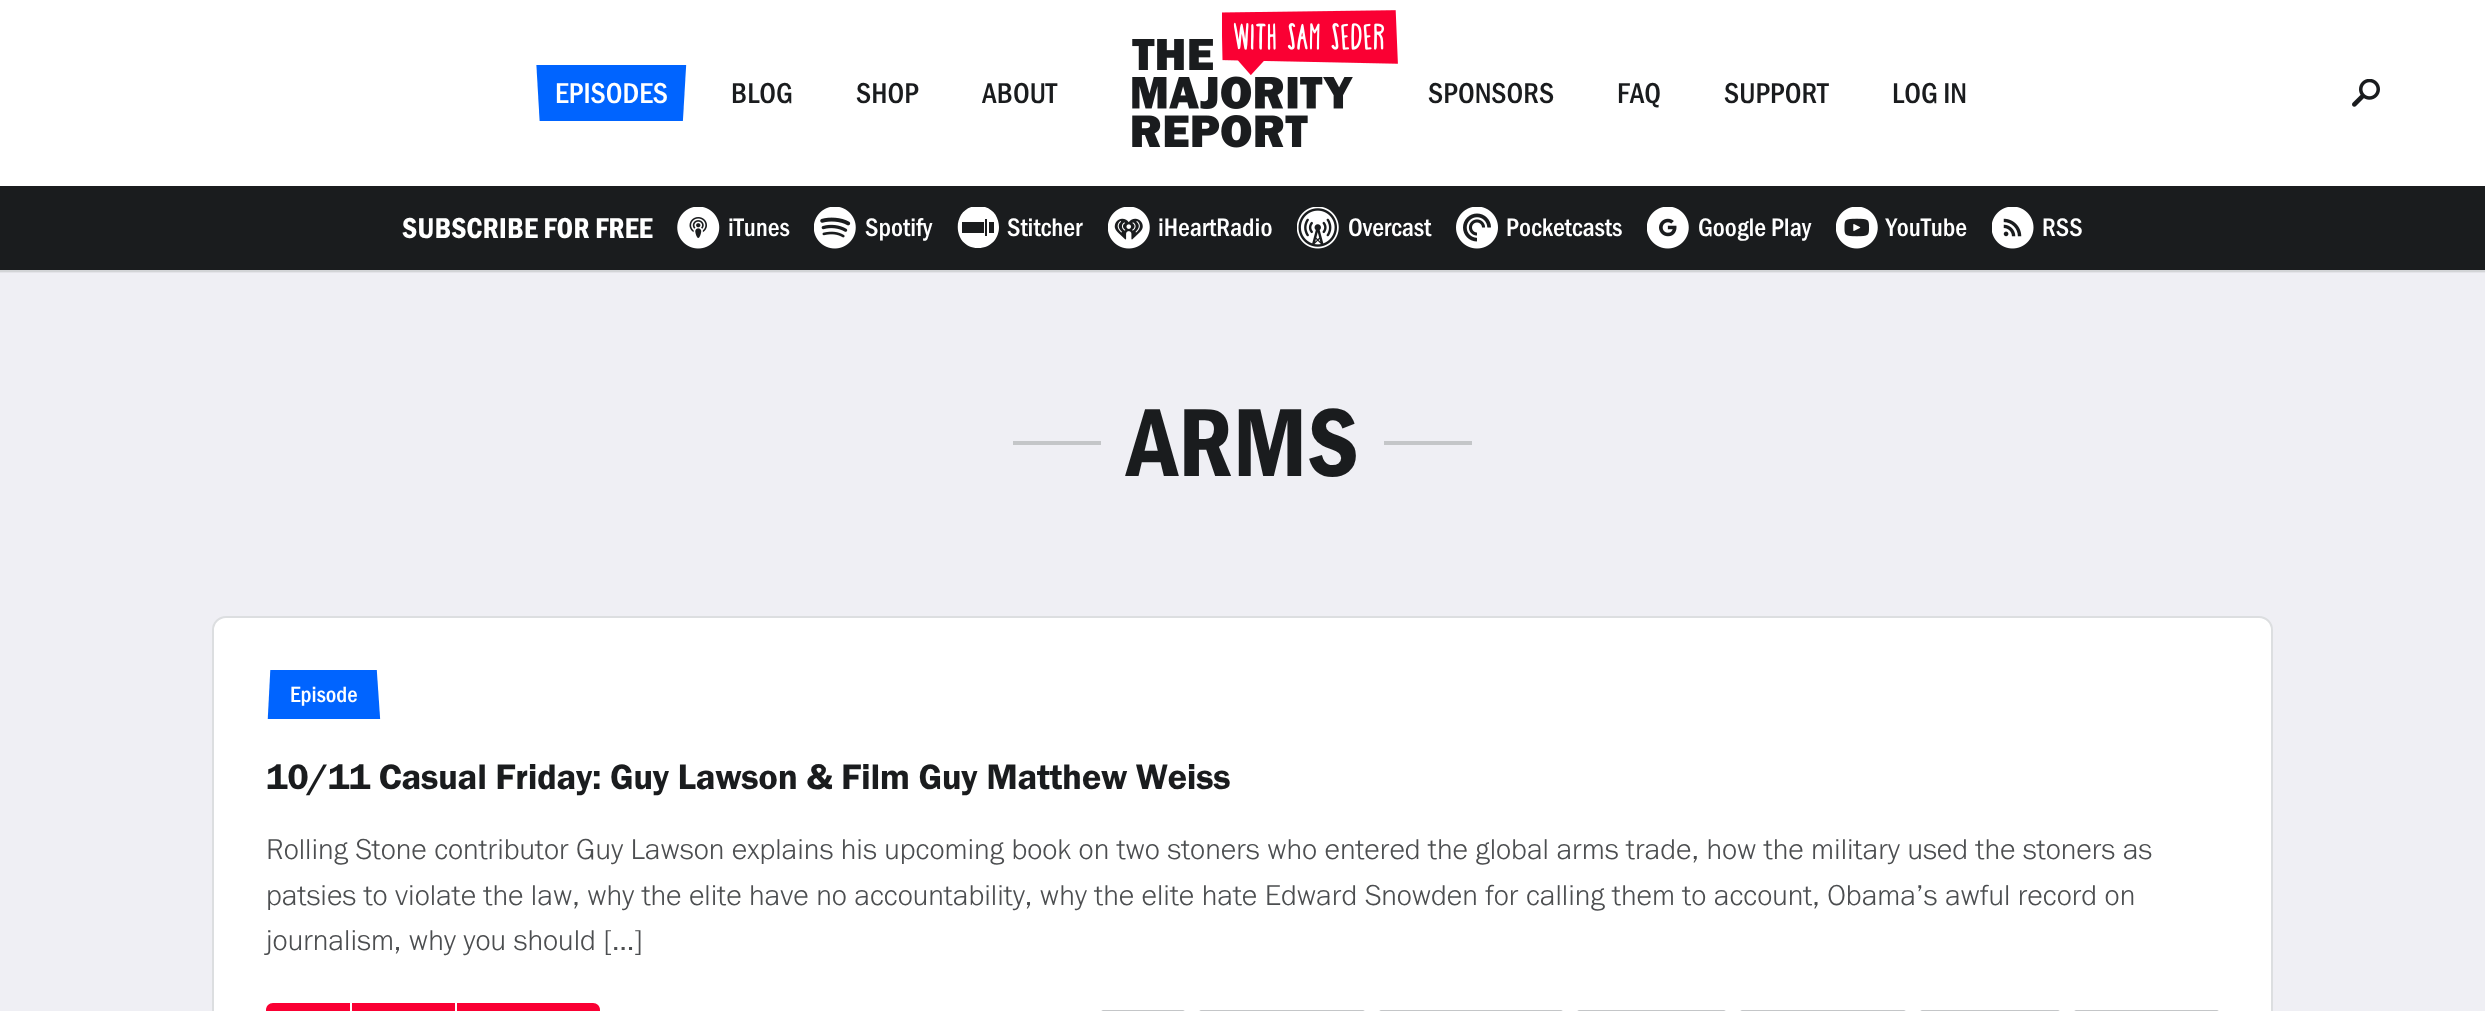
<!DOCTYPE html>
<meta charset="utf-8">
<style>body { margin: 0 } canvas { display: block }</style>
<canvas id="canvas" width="2485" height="1011"></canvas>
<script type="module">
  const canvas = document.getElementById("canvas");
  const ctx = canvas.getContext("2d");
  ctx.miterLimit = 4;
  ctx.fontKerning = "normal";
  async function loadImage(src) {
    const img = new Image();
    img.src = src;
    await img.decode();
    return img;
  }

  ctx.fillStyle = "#efeff4";
  ctx.fillRect(0, 0, 2485, 1011);
  ctx.fillStyle = "#ffffff";
  ctx.fillRect(0, 0, 2485, 186);
  ctx.save();
  ctx.beginPath();
  ctx.rect(534, 65, 156, 56);
  ctx.clip();
  ctx.fillStyle = "#0064ff";
  ctx.beginPath();
  ctx.moveTo(689, 16);
  ctx.lineTo(680, 171);
  ctx.lineTo(542, 162);
  ctx.lineTo(534, 24);
  ctx.closePath();
  ctx.fill("evenodd");
  ctx.restore();
  ctx.font = "29.75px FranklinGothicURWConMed";
  ctx.fillText("EPISODES", 555, 103);
  ctx.fillStyle = "#1a1c1e";
  ctx.fillText("BLOG", 731, 103);
  ctx.fillText("SHOP", 856, 103);
  ctx.fillText("ABOUT", 982, 103);
  ctx.drawImage(await loadImage("img2.png"), 1132, 39, 221, 109);
  ctx.drawImage(await loadImage("img1.png"), 1222, 10, 176, 65);
  ctx.fillText("SPONSORS", 1428, 103);
  ctx.fillText("FAQ", 1617, 103);
  ctx.fillText("SUPPORT", 1724, 103);
  ctx.fillText("LOG IN", 1892, 103);
  ctx.drawImage(await loadImage("img3.png"), 2352, 79, 28, 28);
  ctx.fillRect(0, 186, 2485, 84);
  ctx.font = "29.75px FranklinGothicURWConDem";
  ctx.fillStyle = "#ffffff";
  ctx.fillText("SUBSCRIBE FOR FREE", 402, 238);
  ctx.drawImage(await loadImage("img4.png"), 677, 207, 43, 42);
  ctx.font = "26.25px FranklinGothicURWConMed";
  ctx.fillText("iTunes", 728, 236);
  ctx.drawImage(await loadImage("img5.png"), 814, 207, 42, 42);
  ctx.fillText("Spotify", 865, 236);
  ctx.save();
  ctx.beginPath();
  ctx.rect(957, 207, 51, 42);
  ctx.clip();
  ctx.beginPath();
  ctx.moveTo(978, 248);
  ctx.bezierCurveTo(951, 248, 951, 206, 978, 206);
  ctx.bezierCurveTo(1006, 206, 1006, 248, 978, 248);
  ctx.closePath();
  ctx.moveTo(962, 222);
  ctx.lineTo(962, 233);
  ctx.lineTo(984, 233);
  ctx.lineTo(984, 222);
  ctx.closePath();
  ctx.moveTo(989, 222);
  ctx.lineTo(989, 233);
  ctx.lineTo(994, 233);
  ctx.lineTo(994, 222);
  ctx.closePath();
  ctx.moveTo(985, 219);
  ctx.lineTo(985, 236);
  ctx.lineTo(987, 236);
  ctx.lineTo(987, 219);
  ctx.closePath();
  ctx.fill("evenodd");
  ctx.restore();
  ctx.fillText("Stitcher", 1007, 236);
  ctx.drawImage(await loadImage("img6.png"), 1108, 207, 42, 42);
  ctx.fillText("iHeartRadio", 1158, 236);
  ctx.drawImage(await loadImage("img7.png"), 1297, 207, 42, 42);
  ctx.fillText("Overcast", 1348, 236);
  ctx.drawImage(await loadImage("img8.png"), 1456, 207, 42, 42);
  ctx.fillText("Pocketcasts", 1506, 236);
  ctx.drawImage(await loadImage("img9.png"), 1647, 207, 42, 42);
  ctx.fillText("Google Play", 1698, 236);
  ctx.drawImage(await loadImage("img10.png"), 1836, 207, 42, 42);
  ctx.fillText("YouTube", 1886, 236);
  ctx.drawImage(await loadImage("img11.png"), 1992, 207, 42, 42);
  ctx.fillText("RSS", 2042, 236);
  ctx.fillStyle = "#e4e4e9";
  ctx.fillRect(0, 272, 2485, 1);
  ctx.fillStyle = "#d2d4d6";
  ctx.fillRect(0, 270, 2485, 2);
  ctx.fillStyle = "#c4c6c8";
  ctx.fillRect(1013, 441, 88, 4);
  ctx.font = "100px FranklinGothicURWConDem";
  ctx.fillStyle = "#1a1c1e";
  ctx.fillText("ARMS", 1127, 476);
  ctx.fillStyle = "#c4c6c8";
  ctx.fillRect(1384, 441, 88, 4);
  ctx.fillStyle = "#ffffff";
  ctx.beginPath();
  ctx.roundRect(213, 617, 2059, 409, 13);
  ctx.fill();
  ctx.strokeStyle = "#dcdee0";
  ctx.lineWidth = 2;
  ctx.stroke();
  ctx.save();
  ctx.beginPath();
  ctx.rect(266, 670, 116, 49);
  ctx.clip();
  ctx.fillStyle = "#0064ff";
  ctx.beginPath();
  ctx.moveTo(266, 753);
  ctx.lineTo(272, 637);
  ctx.lineTo(375, 644);
  ctx.lineTo(382, 746);
  ctx.closePath();
  ctx.fill("evenodd");
  ctx.restore();
  ctx.font = "23px FranklinGothicURWConMed";
  ctx.fillText("Episode", 290, 702);
  ctx.letterSpacing = "-0.37px";
  ctx.font = "36.75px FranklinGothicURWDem";
  ctx.fillStyle = "#1a1c1e";
  ctx.fillText("10/11 Casual Friday: Guy Lawson & Film Guy Matthew Weiss", 266, 789);
  ctx.letterSpacing = "0px";
  ctx.font = "29.75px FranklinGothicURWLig";
  ctx.fillStyle = "#4c4e50";
  ctx.fillText("Rolling Stone contributor Guy Lawson explains his upcoming book on two stoners who entered the global arms trade, how the military used the stoners as", 266, 859);
  ctx.fillText("patsies to violate the law, why the elite have no accountability, why the elite hate Edward Snowden for calling them to account, Obama’s awful record on", 266, 905);
  ctx.fillText("journalism, why you should […]", 266, 950);
  ctx.fillStyle = "#fa0033";
  ctx.beginPath();
  ctx.moveTo(273, 1003);
  ctx.lineTo(350, 1003);
  ctx.lineTo(350, 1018);
  ctx.lineTo(273, 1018);
  ctx.bezierCurveTo(269, 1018, 266, 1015, 266, 1011);
  ctx.lineTo(266, 1010);
  ctx.bezierCurveTo(266, 1006, 269, 1003, 273, 1003);
  ctx.closePath();
  ctx.fill();
  ctx.fillRect(352, 1003, 103, 8);
  ctx.beginPath();
  ctx.moveTo(457, 1003);
  ctx.lineTo(593, 1003);
  ctx.bezierCurveTo(597, 1003, 600, 1006, 600, 1010);
  ctx.lineTo(600, 1011);
  ctx.bezierCurveTo(600, 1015, 597, 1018, 593, 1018);
  ctx.lineTo(457, 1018);
  ctx.closePath();
  ctx.fill();
  ctx.fillStyle = "#c4c6c8";
  ctx.beginPath();
  ctx.roundRect(1101, 1010, 84, 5, 4);
  ctx.fill();
  ctx.beginPath();
  ctx.roundRect(1199, 1010, 166, 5, 4);
  ctx.fill();
  ctx.beginPath();
  ctx.roundRect(1379, 1010, 184, 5, 4);
  ctx.fill();
  ctx.beginPath();
  ctx.roundRect(1577, 1010, 149, 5, 4);
  ctx.fill();
  ctx.beginPath();
  ctx.roundRect(1740, 1010, 166, 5, 4);
  ctx.fill();
  ctx.beginPath();
  ctx.roundRect(1920, 1010, 140, 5, 4);
  ctx.fill();
  ctx.beginPath();
  ctx.roundRect(2074, 1010, 145, 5, 4);
  ctx.fill();
</script>
